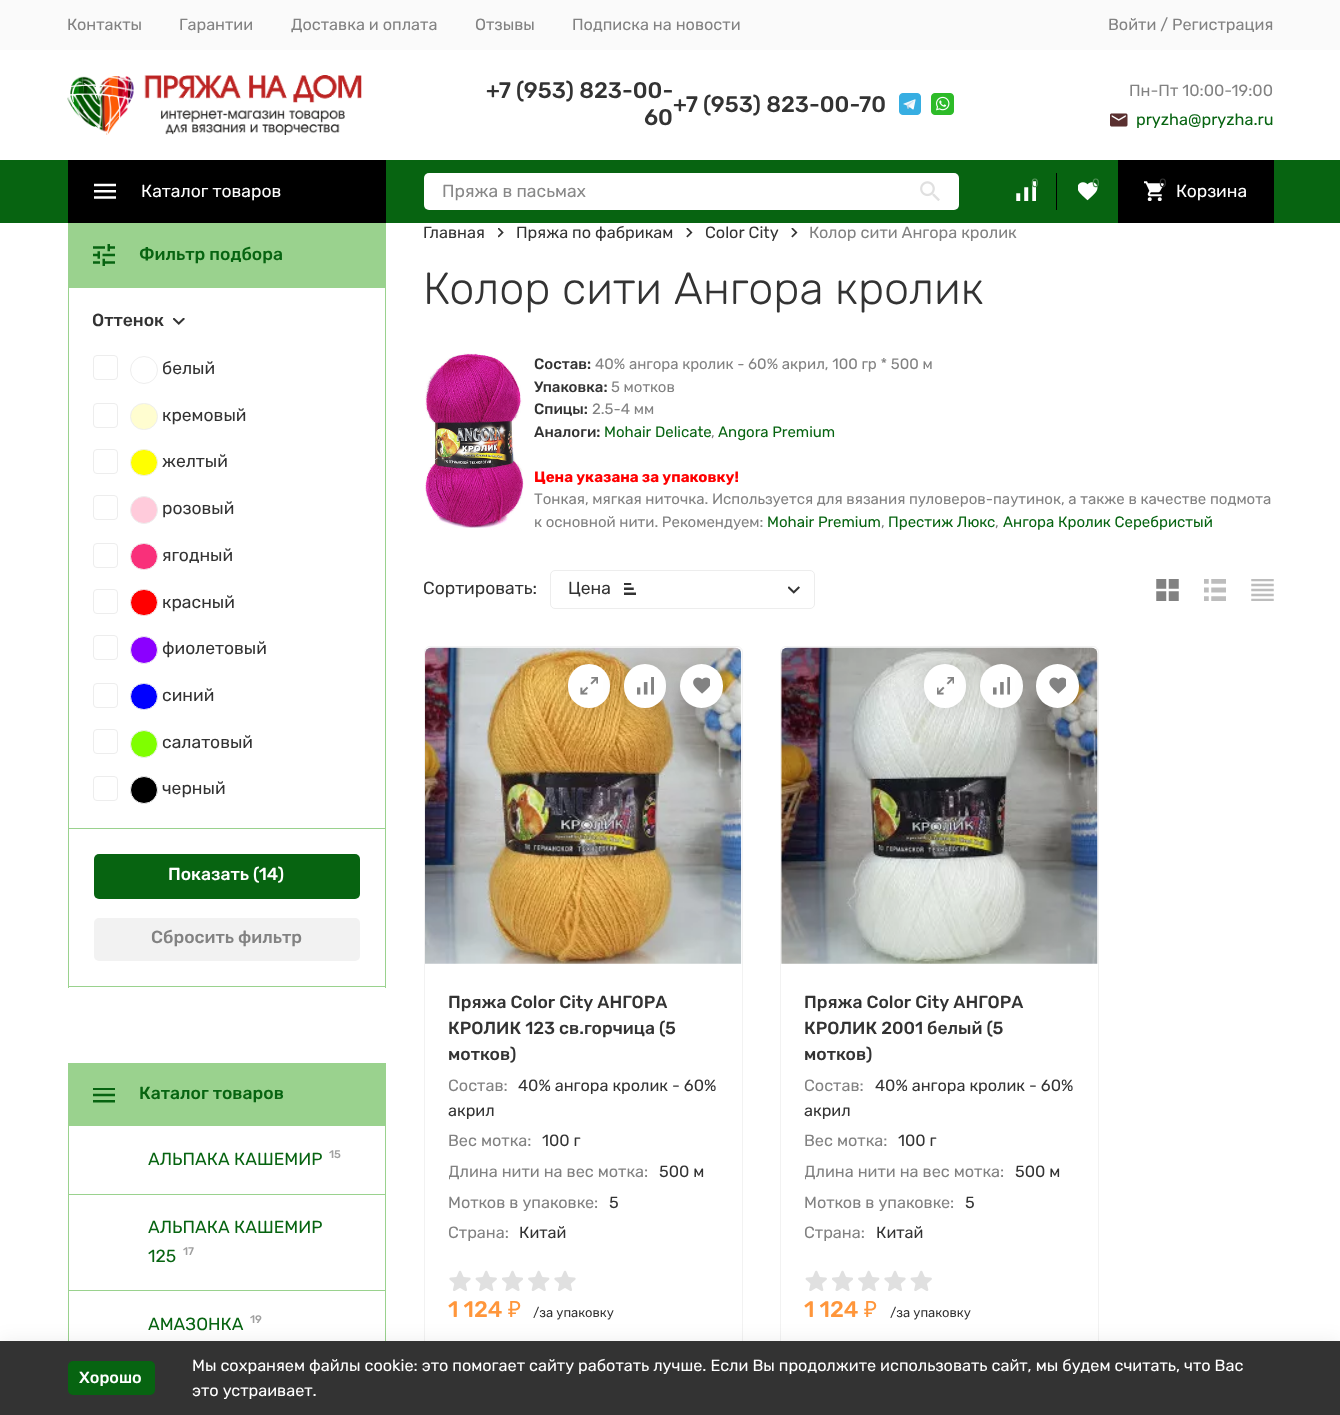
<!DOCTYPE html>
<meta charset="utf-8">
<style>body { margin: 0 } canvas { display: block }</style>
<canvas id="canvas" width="1340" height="1415"></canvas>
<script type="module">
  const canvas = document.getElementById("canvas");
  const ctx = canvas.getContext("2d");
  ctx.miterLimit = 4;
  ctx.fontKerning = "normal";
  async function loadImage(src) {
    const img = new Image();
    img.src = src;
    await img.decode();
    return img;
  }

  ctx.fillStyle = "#ffffff";
  ctx.fillRect(0, 0, 1340, 1415);
  ctx.fillStyle = "#fafafa";
  ctx.fillRect(0, 0, 1340, 50);
  ctx.font = "16.25px Rubik";
  ctx.fillStyle = "#828282";
  ctx.fillText("Контакты", 67, 30);
  ctx.fillText("Гарантии", 179, 30);
  ctx.fillText("Доставка и оплата", 291, 30);
  ctx.fillText("Отзывы", 475, 30);
  ctx.fillText("Подписка на новости", 572, 30);
  ctx.fillText("Войти / Регистрация", 1108, 30);
  ctx.drawImage(await loadImage("img1.png"), 67, 75, 295, 60);
  ctx.font = "500 22.5px Rubik";
  ctx.fillStyle = "#333333";
  ctx.fillText("+7 (953) 823-00-", 486, 98);
  ctx.fillText("60", 644, 125);
  ctx.fillText("+7 (953) 823-00-70", 673, 112);
  ctx.drawImage(await loadImage("img2.png"), 899, 93, 22, 22);
  ctx.drawImage(await loadImage("img3.png"), 931, 93, 23, 22);
  ctx.font = "16.25px Rubik";
  ctx.fillStyle = "#828282";
  ctx.fillText("Пн-Пт 10:00-19:00", 1129, 96);
  ctx.drawImage(await loadImage("img4.png"), 1110, 113, 18, 14);
  ctx.fillStyle = "#076411";
  ctx.fillText("pryzha@pryzha.ru", 1136, 125);
  ctx.fillRect(0, 160, 1340, 63);
  ctx.fillStyle = "#000000";
  ctx.fillRect(68, 160, 318, 63);
  ctx.drawImage(await loadImage("img5.png"), 94, 183, 22, 16);
  ctx.font = "17.5px Rubik";
  ctx.fillStyle = "#ffffff";
  ctx.fillText("Каталог товаров", 141, 197);
  ctx.beginPath();
  ctx.roundRect(424, 173, 535, 37, 5);
  ctx.fill();
  ctx.fillStyle = "#888888";
  ctx.fillText("Пряжа в пасьмах", 442, 197);
  ctx.drawImage(await loadImage("img6.png"), 920, 181, 20, 20);
  ctx.drawImage(await loadImage("img7.png"), 1016, 181, 20, 20);
  ctx.font = "12px Rubik";
  ctx.fillStyle = "#57965d";
  ctx.fillText("0", 1031, 187);
  ctx.fillStyle = "#000000";
  ctx.fillRect(1056, 173, 1, 37);
  ctx.drawImage(await loadImage("img8.png"), 1078, 182, 20, 19);
  ctx.fillStyle = "#4f9156";
  ctx.fillText("0", 1092, 187);
  ctx.fillStyle = "#000000";
  ctx.fillRect(1118, 160, 156, 63);
  ctx.drawImage(await loadImage("img9.png"), 1144, 181, 20, 20);
  ctx.fillStyle = "#333333";
  ctx.fillText("0", 1159, 187);
  ctx.font = "17.5px Rubik";
  ctx.fillStyle = "#ffffff";
  ctx.fillText("Корзина", 1176, 197);
  ctx.fillStyle = "#9ad28e";
  ctx.fillRect(68, 223, 318, 65);
  ctx.drawImage(await loadImage("img10.png"), 93, 244, 22, 22);
  ctx.font = "500 17.5px Rubik";
  ctx.fillStyle = "#076411";
  ctx.fillText("Фильтр подбора", 139, 260);
  ctx.fillStyle = "#9ad28e";
  ctx.fillRect(385, 286, 1, 702);
  ctx.fillRect(68, 986, 318, 1);
  ctx.fillRect(68, 286, 1, 702);
  ctx.fillRect(69, 828, 316, 1);
  ctx.fillStyle = "#333333";
  ctx.fillText("Оттенок", 92, 326);
  ctx.drawImage(await loadImage("img11.png"), 173, 318, 12, 7);
  ctx.beginPath();
  ctx.roundRect(93.5, 355.5, 24, 24, 3.5);
  ctx.strokeStyle = "#ededed";
  ctx.stroke();
  ctx.beginPath();
  ctx.arc(144, 370, 13.5, 0, Math.PI * 2);
  ctx.strokeStyle = "#eeeeee";
  ctx.stroke();
  ctx.font = "17.5px Rubik";
  ctx.fillText("белый", 162, 374);
  ctx.beginPath();
  ctx.roundRect(93.5, 403.5, 24, 24, 3.5);
  ctx.strokeStyle = "#ededed";
  ctx.stroke();
  ctx.fillStyle = "#fffdd0";
  ctx.beginPath();
  ctx.roundRect(130.5, 403.5, 27, 26, 13);
  ctx.fill();
  ctx.strokeStyle = "#eeeeee";
  ctx.stroke();
  ctx.fillStyle = "#333333";
  ctx.fillText("кремовый", 162, 421);
  ctx.beginPath();
  ctx.roundRect(93.5, 449.5, 24, 24, 3.5);
  ctx.strokeStyle = "#ededed";
  ctx.stroke();
  ctx.fillStyle = "#ffff00";
  ctx.beginPath();
  ctx.roundRect(130.5, 449.5, 27, 26, 13);
  ctx.fill();
  ctx.strokeStyle = "#eeeeee";
  ctx.stroke();
  ctx.fillStyle = "#333333";
  ctx.fillText("желтый", 162, 467);
  ctx.beginPath();
  ctx.roundRect(93.5, 495.5, 24, 24, 3.5);
  ctx.strokeStyle = "#ededed";
  ctx.stroke();
  ctx.fillStyle = "#ffcbdb";
  ctx.beginPath();
  ctx.arc(144, 510, 13.5, 0, Math.PI * 2);
  ctx.fill();
  ctx.strokeStyle = "#eeeeee";
  ctx.stroke();
  ctx.fillStyle = "#333333";
  ctx.fillText("розовый", 162, 514);
  ctx.beginPath();
  ctx.roundRect(93.5, 543.5, 24, 24, 3.5);
  ctx.strokeStyle = "#ededed";
  ctx.stroke();
  ctx.fillStyle = "#f9307a";
  ctx.beginPath();
  ctx.roundRect(130.5, 543.5, 27, 26, 13);
  ctx.fill();
  ctx.strokeStyle = "#eeeeee";
  ctx.stroke();
  ctx.fillStyle = "#333333";
  ctx.fillText("ягодный", 162, 561);
  ctx.beginPath();
  ctx.roundRect(93.5, 589.5, 24, 24, 3.5);
  ctx.strokeStyle = "#ededed";
  ctx.stroke();
  ctx.fillStyle = "#ff0000";
  ctx.beginPath();
  ctx.roundRect(130.5, 589.5, 27, 26, 13);
  ctx.fill();
  ctx.strokeStyle = "#eeeeee";
  ctx.stroke();
  ctx.fillStyle = "#333333";
  ctx.fillText("красный", 162, 608);
  ctx.beginPath();
  ctx.roundRect(93.5, 635.5, 24, 24, 3.5);
  ctx.strokeStyle = "#ededed";
  ctx.stroke();
  ctx.fillStyle = "#8b00ff";
  ctx.beginPath();
  ctx.arc(144, 650, 13.5, 0, Math.PI * 2);
  ctx.fill();
  ctx.strokeStyle = "#eeeeee";
  ctx.stroke();
  ctx.fillStyle = "#333333";
  ctx.fillText("фиолетовый", 162, 654);
  ctx.beginPath();
  ctx.roundRect(93.5, 683.5, 24, 24, 3.5);
  ctx.strokeStyle = "#ededed";
  ctx.stroke();
  ctx.fillStyle = "#0000ff";
  ctx.beginPath();
  ctx.roundRect(130.5, 683.5, 27, 26, 13);
  ctx.fill();
  ctx.strokeStyle = "#eeeeee";
  ctx.stroke();
  ctx.fillStyle = "#333333";
  ctx.fillText("синий", 162, 701);
  ctx.beginPath();
  ctx.roundRect(93.5, 729.5, 24, 24, 3.5);
  ctx.strokeStyle = "#ededed";
  ctx.stroke();
  ctx.fillStyle = "#7fff00";
  ctx.beginPath();
  ctx.arc(144, 744, 13.5, 0, Math.PI * 2);
  ctx.fill();
  ctx.strokeStyle = "#eeeeee";
  ctx.stroke();
  ctx.fillStyle = "#333333";
  ctx.fillText("салатовый", 162, 748);
  ctx.beginPath();
  ctx.roundRect(93.5, 776.5, 24, 24, 3.5);
  ctx.strokeStyle = "#ededed";
  ctx.stroke();
  ctx.fillStyle = "#000000";
  ctx.beginPath();
  ctx.arc(144, 790, 13.5, 0, Math.PI * 2);
  ctx.fill();
  ctx.strokeStyle = "#eeeeee";
  ctx.stroke();
  ctx.fillStyle = "#333333";
  ctx.fillText("черный", 162, 794);
  ctx.fillStyle = "#076411";
  ctx.beginPath();
  ctx.roundRect(94, 854, 266, 45, 5);
  ctx.fill();
  ctx.font = "500 17.5px Rubik";
  ctx.fillStyle = "#ffffff";
  ctx.fillText("Показать (14)", 168, 880);
  ctx.fillStyle = "#f2f2f2";
  ctx.beginPath();
  ctx.roundRect(94, 918, 266, 43, 5);
  ctx.fill();
  ctx.fillStyle = "#828282";
  ctx.fillText("Сбросить фильтр", 151, 943);
  ctx.fillStyle = "#9ad28e";
  ctx.fillRect(68, 1063, 318, 63);
  ctx.drawImage(await loadImage("img12.png"), 93, 1088, 22, 15);
  ctx.fillStyle = "#076411";
  ctx.fillText("Каталог товаров", 139, 1099);
  ctx.fillStyle = "#9ad28e";
  ctx.fillRect(385, 1126, 1, 215);
  ctx.fillRect(68, 1126, 1, 215);
  ctx.fillRect(69, 1194, 316, 1);
  ctx.font = "17.5px Rubik";
  ctx.fillStyle = "#076411";
  ctx.fillText("АЛЬПАКА КАШЕМИР", 148, 1165);
  ctx.font = "500 11px Rubik";
  ctx.fillStyle = "#a0a0a0";
  ctx.fillText("15", 329, 1158);
  ctx.fillStyle = "#9ad28e";
  ctx.fillRect(69, 1290, 316, 1);
  ctx.font = "17.5px Rubik";
  ctx.fillStyle = "#076411";
  ctx.fillText("АЛЬПАКА КАШЕМИР", 148, 1233);
  ctx.fillText("125", 148, 1262);
  ctx.font = "500 11px Rubik";
  ctx.fillStyle = "#a0a0a0";
  ctx.fillText("17", 183, 1255);
  ctx.font = "17.5px Rubik";
  ctx.fillStyle = "#076411";
  ctx.fillText("АМАЗОНКА", 148, 1330);
  ctx.font = "500 11px Rubik";
  ctx.fillStyle = "#a0a0a0";
  ctx.fillText("19", 250, 1323);
  ctx.font = "16.25px Rubik";
  ctx.fillStyle = "#333333";
  ctx.fillText("Главная", 423, 238);
  ctx.drawImage(await loadImage("img13.png"), 498, 228, 6, 10);
  ctx.fillText("Пряжа по фабрикам", 516, 238);
  ctx.drawImage(await loadImage("img14.png"), 686, 228, 7, 10);
  ctx.fillText("Color City", 705, 238);
  ctx.drawImage(await loadImage("img14.png"), 791, 228, 7, 10);
  ctx.fillStyle = "#828282";
  ctx.fillText("Колор cити Ангора кролик", 809, 238);
  ctx.font = "300 45px Rubik";
  ctx.fillStyle = "#333333";
  ctx.fillText("Колор cити Ангора кролик", 423, 304);
  ctx.drawImage(await loadImage("img15.png"), 425, 353, 99, 175);
  ctx.font = "500 15px Rubik";
  ctx.fillText("Состав:", 534, 369);
  ctx.font = "15px Rubik";
  ctx.fillStyle = "#828282";
  ctx.fillText("40% ангора кролик - 60% акрил, 100 гр * 500 м", 595, 369);
  ctx.font = "500 15px Rubik";
  ctx.fillStyle = "#333333";
  ctx.fillText("Упаковка:", 534, 392);
  ctx.font = "15px Rubik";
  ctx.fillStyle = "#828282";
  ctx.fillText("5 мотков", 611, 392);
  ctx.font = "500 15px Rubik";
  ctx.fillStyle = "#333333";
  ctx.fillText("Спицы:", 534, 414);
  ctx.font = "15px Rubik";
  ctx.fillStyle = "#828282";
  ctx.fillText("2.5-4 мм", 592, 414);
  ctx.font = "500 15px Rubik";
  ctx.fillStyle = "#333333";
  ctx.fillText("Аналоги:", 534, 437);
  ctx.font = "15px Rubik";
  ctx.fillStyle = "#076411";
  ctx.fillText("Mohair Delicate", 604, 437);
  ctx.fillStyle = "#828282";
  ctx.fillText(",", 711, 437);
  ctx.fillStyle = "#076411";
  ctx.fillText("Angora Premium", 718, 437);
  ctx.font = "bold 15px Rubik";
  ctx.fillStyle = "#ff0000";
  ctx.fillText("Цена указана за упаковку!", 534, 482);
  ctx.font = "15px Rubik";
  ctx.fillStyle = "#828282";
  ctx.fillText("Тонкая, мягкая ниточка. Используется для вязания пуловеров-паутинок, а также в качестве подмота", 534, 504);
  ctx.fillText("к основной нити. Рекомендуем:", 534, 527);
  ctx.fillStyle = "#076411";
  ctx.fillText("Mohair Premium", 767, 527);
  ctx.fillStyle = "#828282";
  ctx.fillText(",", 881, 527);
  ctx.fillStyle = "#076411";
  ctx.fillText("Престиж Люкс", 888, 527);
  ctx.fillStyle = "#828282";
  ctx.fillText(",", 995, 527);
  ctx.fillStyle = "#076411";
  ctx.fillText("Ангора Кролик Серебристый", 1003, 527);
  ctx.font = "17.5px Rubik";
  ctx.fillStyle = "#333333";
  ctx.fillText("Сортировать:", 423, 594);
  ctx.beginPath();
  ctx.roundRect(550.5, 570.5, 264, 38, 4.5);
  ctx.strokeStyle = "#ededed";
  ctx.stroke();
  ctx.fillText("Цена", 568, 594);
  ctx.drawImage(await loadImage("img16.png"), 624, 583, 12, 12);
  ctx.drawImage(await loadImage("img17.png"), 788, 586, 12, 8);
  ctx.drawImage(await loadImage("img18.png"), 1156, 579, 23, 22);
  ctx.drawImage(await loadImage("img19.png"), 1204, 579, 22, 22);
  ctx.drawImage(await loadImage("img20.png"), 1251, 579, 23, 22);
  ctx.beginPath();
  ctx.roundRect(424.5, 646.5, 318, 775, 5.5);
  ctx.strokeStyle = "#f2f2f2";
  ctx.stroke();
  ctx.drawImage(await loadImage("img24.png"), 425, 647, 317, 317);
  ctx.fillStyle = "rgba(0, 0, 0, 0.15)";
  ctx.filter = "blur(10.5px)";
  ctx.beginPath();
  ctx.roundRect(568, 664, 42, 44, 21);
  ctx.fill();
  ctx.filter = "none";
  ctx.fillStyle = "#ffffff";
  ctx.beginPath();
  ctx.roundRect(568, 664, 42, 44, 21);
  ctx.fill();
  ctx.fillStyle = "rgba(0, 0, 0, 0.15)";
  ctx.filter = "blur(10.5px)";
  ctx.beginPath();
  ctx.roundRect(624, 664, 42, 44, 21);
  ctx.fill();
  ctx.filter = "none";
  ctx.drawImage(await loadImage("img21.png"), 580, 677, 18, 18);
  ctx.fillStyle = "#ffffff";
  ctx.beginPath();
  ctx.roundRect(624, 664, 42, 44, 21);
  ctx.fill();
  ctx.fillStyle = "rgba(0, 0, 0, 0.15)";
  ctx.filter = "blur(10.5px)";
  ctx.beginPath();
  ctx.roundRect(680, 664, 43, 44, 21.5);
  ctx.fill();
  ctx.filter = "none";
  ctx.drawImage(await loadImage("img22.png"), 637, 677, 17, 18);
  ctx.fillStyle = "#ffffff";
  ctx.beginPath();
  ctx.roundRect(680, 664, 43, 44, 21.5);
  ctx.fill();
  ctx.drawImage(await loadImage("img23.png"), 693, 677, 17, 17);
  ctx.font = "500 17.5px Rubik";
  ctx.fillStyle = "#333333";
  ctx.fillText("Пряжа Color City АНГОРА", 448, 1008);
  ctx.fillText("КРОЛИК 123 св.горчица (5", 448, 1034);
  ctx.fillText("мотков)", 448, 1060);
  ctx.font = "16.25px Rubik";
  ctx.fillStyle = "#828282";
  ctx.fillText("Состав:", 448, 1091);
  ctx.fillStyle = "#333333";
  ctx.fillText("40% ангора кролик - 60%", 518, 1091);
  ctx.fillText("акрил", 448, 1116);
  ctx.fillStyle = "#828282";
  ctx.fillText("Вес мотка:", 448, 1146);
  ctx.fillStyle = "#333333";
  ctx.fillText("100 г", 542, 1146);
  ctx.save();
  ctx.beginPath();
  ctx.rect(449, 1160, 269, 24);
  ctx.clip();
  ctx.fillStyle = "#828282";
  ctx.fillText("Длина нити на вес мотка:", 448, 1177);
  ctx.restore();
  ctx.fillText("500 м", 659, 1177);
  ctx.fillStyle = "#828282";
  ctx.fillText("Мотков в упаковке:", 448, 1208);
  ctx.fillStyle = "#333333";
  ctx.fillText("5", 609, 1208);
  ctx.fillStyle = "#828282";
  ctx.fillText("Страна:", 448, 1238);
  ctx.fillStyle = "#333333";
  ctx.fillText("Китай", 519, 1238);
  ctx.drawImage(await loadImage("img25.png"), 449, 1270, 22, 21);
  ctx.drawImage(await loadImage("img26.png"), 475, 1270, 22, 21);
  ctx.drawImage(await loadImage("img27.png"), 502, 1270, 21, 21);
  ctx.drawImage(await loadImage("img28.png"), 528, 1270, 22, 21);
  ctx.drawImage(await loadImage("img25.png"), 554, 1270, 22, 21);
  ctx.font = "500 22.5px Rubik";
  ctx.fillStyle = "#ff963b";
  ctx.fillText("1 124", 448, 1317);
  ctx.font = "22.5px Noto Sans";
  ctx.fillText("₽", 508, 1317);
  ctx.font = "13px Rubik";
  ctx.fillStyle = "#333333";
  ctx.fillText("/за упаковку", 533, 1317);
  ctx.beginPath();
  ctx.roundRect(780.5, 646.5, 318, 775, 5.5);
  ctx.stroke();
  ctx.drawImage(await loadImage("img32.png"), 781, 647, 317, 317);
  ctx.fillStyle = "rgba(0, 0, 0, 0.15)";
  ctx.filter = "blur(10.5px)";
  ctx.beginPath();
  ctx.roundRect(924, 664, 42, 44, 21);
  ctx.fill();
  ctx.filter = "none";
  ctx.fillStyle = "#ffffff";
  ctx.beginPath();
  ctx.roundRect(924, 664, 42, 44, 21);
  ctx.fill();
  ctx.fillStyle = "rgba(0, 0, 0, 0.15)";
  ctx.filter = "blur(10.5px)";
  ctx.beginPath();
  ctx.roundRect(980, 664, 43, 44, 21.5);
  ctx.fill();
  ctx.filter = "none";
  ctx.drawImage(await loadImage("img29.png"), 937, 677, 17, 18);
  ctx.fillStyle = "#ffffff";
  ctx.beginPath();
  ctx.roundRect(980, 664, 43, 44, 21.5);
  ctx.fill();
  ctx.fillStyle = "rgba(0, 0, 0, 0.15)";
  ctx.filter = "blur(10.5px)";
  ctx.beginPath();
  ctx.roundRect(1036, 664, 43, 44, 21.5);
  ctx.fill();
  ctx.filter = "none";
  ctx.drawImage(await loadImage("img30.png"), 993, 677, 17, 18);
  ctx.fillStyle = "#ffffff";
  ctx.beginPath();
  ctx.roundRect(1036, 664, 43, 44, 21.5);
  ctx.fill();
  ctx.drawImage(await loadImage("img31.png"), 1049, 677, 17, 17);
  ctx.font = "500 17.5px Rubik";
  ctx.fillStyle = "#333333";
  ctx.fillText("Пряжа Color City АНГОРА", 804, 1008);
  ctx.fillText("КРОЛИК 2001 белый (5", 804, 1034);
  ctx.fillText("мотков)", 804, 1060);
  ctx.font = "16.25px Rubik";
  ctx.fillStyle = "#828282";
  ctx.fillText("Состав:", 804, 1091);
  ctx.fillStyle = "#333333";
  ctx.fillText("40% ангора кролик - 60%", 875, 1091);
  ctx.fillText("акрил", 804, 1116);
  ctx.fillStyle = "#828282";
  ctx.fillText("Вес мотка:", 804, 1146);
  ctx.fillStyle = "#333333";
  ctx.fillText("100 г", 898, 1146);
  ctx.save();
  ctx.beginPath();
  ctx.rect(805, 1160, 269, 24);
  ctx.clip();
  ctx.fillStyle = "#828282";
  ctx.fillText("Длина нити на вес мотка:", 804, 1177);
  ctx.restore();
  ctx.fillText("500 м", 1015, 1177);
  ctx.fillStyle = "#828282";
  ctx.fillText("Мотков в упаковке:", 804, 1208);
  ctx.fillStyle = "#333333";
  ctx.fillText("5", 965, 1208);
  ctx.fillStyle = "#828282";
  ctx.fillText("Страна:", 804, 1238);
  ctx.fillStyle = "#333333";
  ctx.fillText("Китай", 876, 1238);
  ctx.drawImage(await loadImage("img26.png"), 805, 1270, 22, 21);
  ctx.drawImage(await loadImage("img27.png"), 832, 1270, 21, 21);
  ctx.drawImage(await loadImage("img28.png"), 858, 1270, 22, 21);
  ctx.drawImage(await loadImage("img25.png"), 884, 1270, 22, 21);
  ctx.drawImage(await loadImage("img26.png"), 910, 1270, 22, 21);
  ctx.font = "500 22.5px Rubik";
  ctx.fillStyle = "#ff963b";
  ctx.fillText("1 124", 804, 1317);
  ctx.font = "22.5px Noto Sans";
  ctx.fillText("₽", 864, 1317);
  ctx.font = "13px Rubik";
  ctx.fillStyle = "#333333";
  ctx.fillText("/за упаковку", 890, 1317);
  ctx.fillStyle = "rgba(0, 0, 0, 0.07)";
  ctx.filter = "blur(9.5px)";
  ctx.beginPath();
  ctx.rect(0, 1341, 1340, 74);
  ctx.fill();
  ctx.filter = "none";
  ctx.fillStyle = "#333333";
  ctx.fillRect(0, 1341, 1340, 74);
  ctx.fillStyle = "#076411";
  ctx.beginPath();
  ctx.roundRect(68, 1361, 87, 34, 5);
  ctx.fill();
  ctx.font = "500 16.25px Rubik";
  ctx.fillStyle = "#ffffff";
  ctx.fillText("Хорошо", 79, 1383);
  ctx.font = "16.25px Rubik";
  ctx.fillText("Мы сохраняем файлы cookie: это помогает сайту работать лучше. Если Вы продолжите использовать сайт, мы будем считать, что Вас", 192, 1371);
  ctx.fillText("это устраивает.", 192, 1396);
</script>
